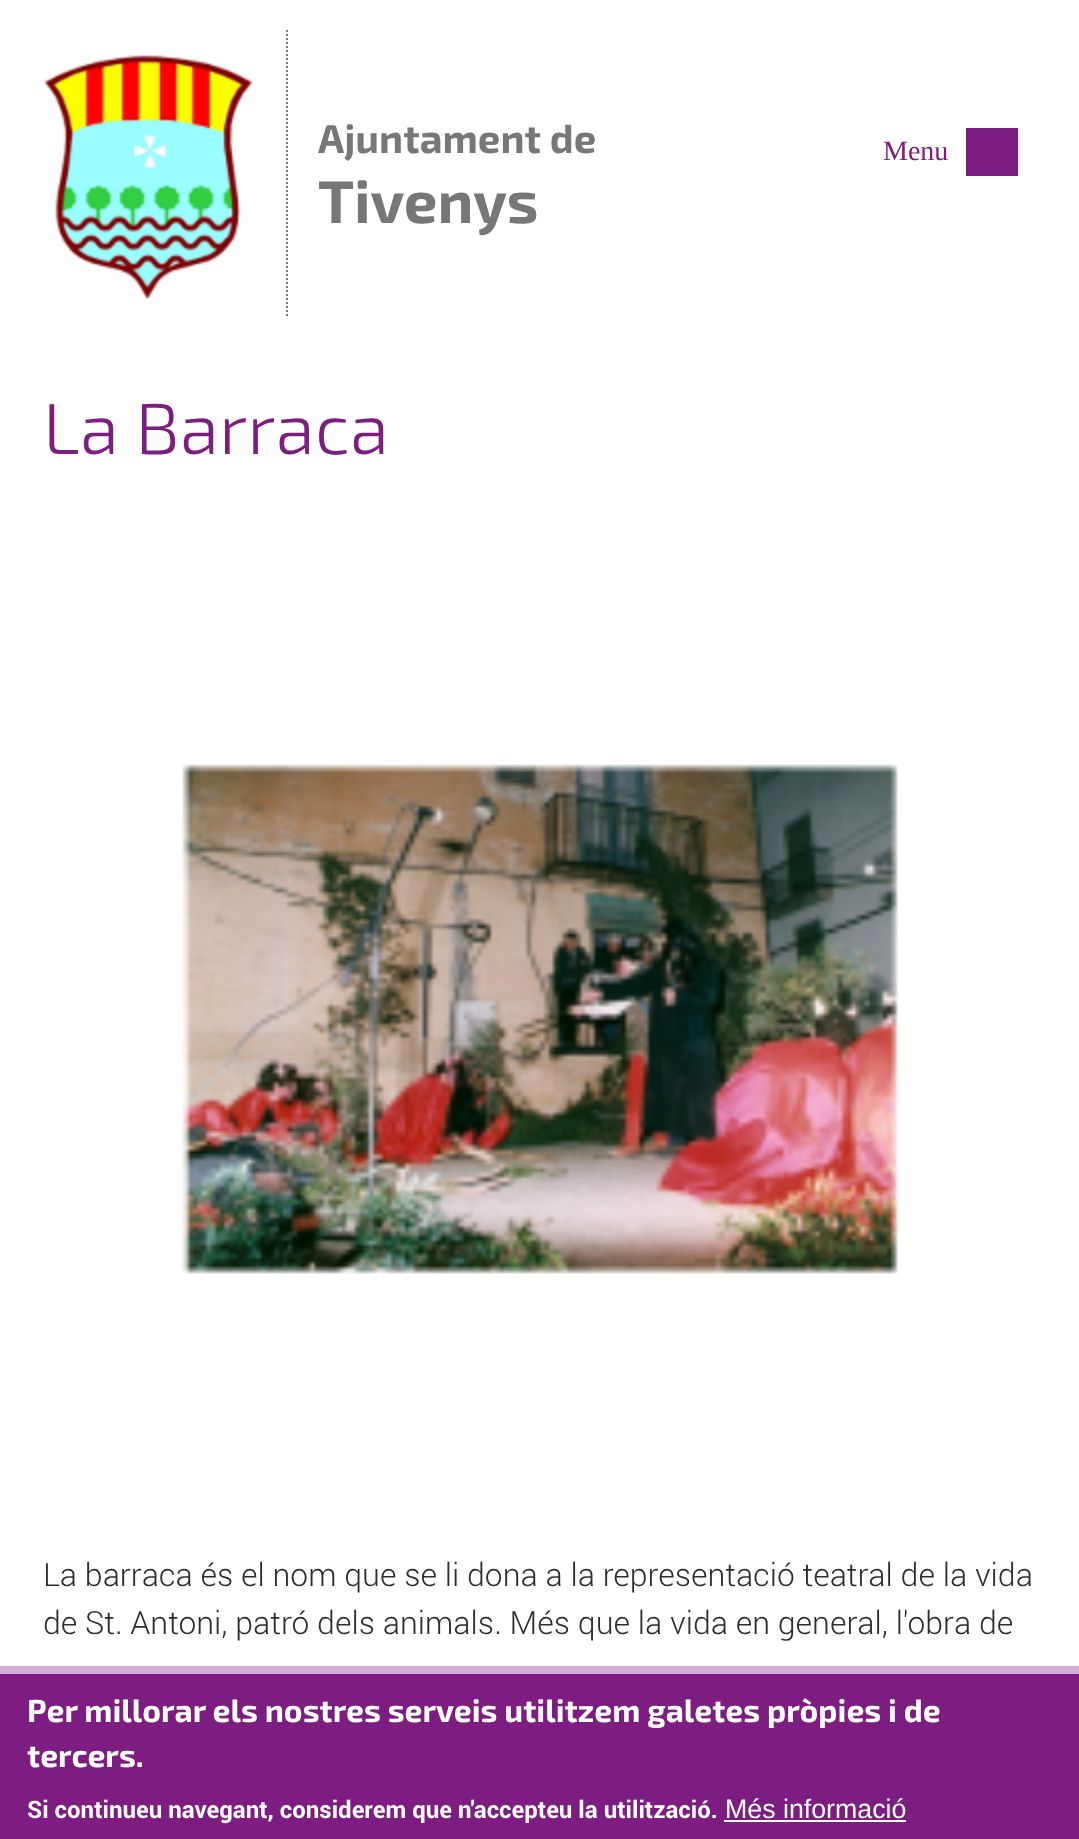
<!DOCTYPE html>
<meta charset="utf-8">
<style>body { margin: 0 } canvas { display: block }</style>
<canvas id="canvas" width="1079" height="1839"></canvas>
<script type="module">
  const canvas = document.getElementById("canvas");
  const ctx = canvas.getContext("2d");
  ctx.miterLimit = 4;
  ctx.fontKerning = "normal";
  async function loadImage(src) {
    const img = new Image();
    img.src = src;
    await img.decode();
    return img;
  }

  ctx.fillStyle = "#ffffff";
  ctx.fillRect(0, 0, 1079, 1839);
  ctx.drawImage(await loadImage("img1.png"), 43, 53, 210, 248);
  ctx.beginPath();
  ctx.moveTo(287, 30);
  ctx.lineTo(287, 316);
  ctx.strokeStyle = "#777777";
  ctx.lineWidth = 2;
  ctx.setLineDash([2, 2]);
  ctx.stroke();
  ctx.font = "bold 40.25px 'Exo 2'";
  ctx.fillStyle = "#777777";
  ctx.fillText("Ajuntament de", 318, 153);
  ctx.font = "bold 60px 'Exo 2'";
  ctx.fillText("Tivenys", 318, 223);
  ctx.font = "28px Liberation Serif";
  ctx.fillStyle = "#7d1d81";
  ctx.fillText("Menu", 883, 160);
  ctx.fillRect(966, 128, 52, 48);
  ctx.font = "300 72px 'Exo 2'";
  ctx.fillText("La Barraca", 43, 454);
  ctx.drawImage(await loadImage("img2.png"), 182, 764, 716, 510);
  ctx.font = "300 32px Roboto";
  ctx.fillStyle = "#2d2d2d";
  ctx.fillText("La barraca és el nom que se li dona a la representació teatral de la vida", 43, 1586);
  ctx.fillText("de St. Antoni, patró dels animals. Més que la vida en general, l'obra de", 43, 1634);
  ctx.fillStyle = "#7d1d81";
  ctx.fillRect(0, 1674, 1079, 165);
  ctx.fillStyle = "#d6add8";
  ctx.fillRect(0, 1666, 1079, 8);
  ctx.font = "bold 32px 'Exo 2'";
  ctx.fillStyle = "#ffffff";
  ctx.fillText("Per millorar els nostres serveis utilitzem galetes pròpies i de", 27, 1722);
  ctx.fillText("tercers.", 27, 1767);
  ctx.font = "bold 24px Roboto";
  ctx.fillText("Si continueu navegant, considerem que n'accepteu la utilització.", 27, 1818);
  ctx.font = "26.75px Liberation Sans";
  ctx.fillText("Més informació", 725, 1818);
  ctx.fillRect(724, 1820, 182, 2);
</script>
